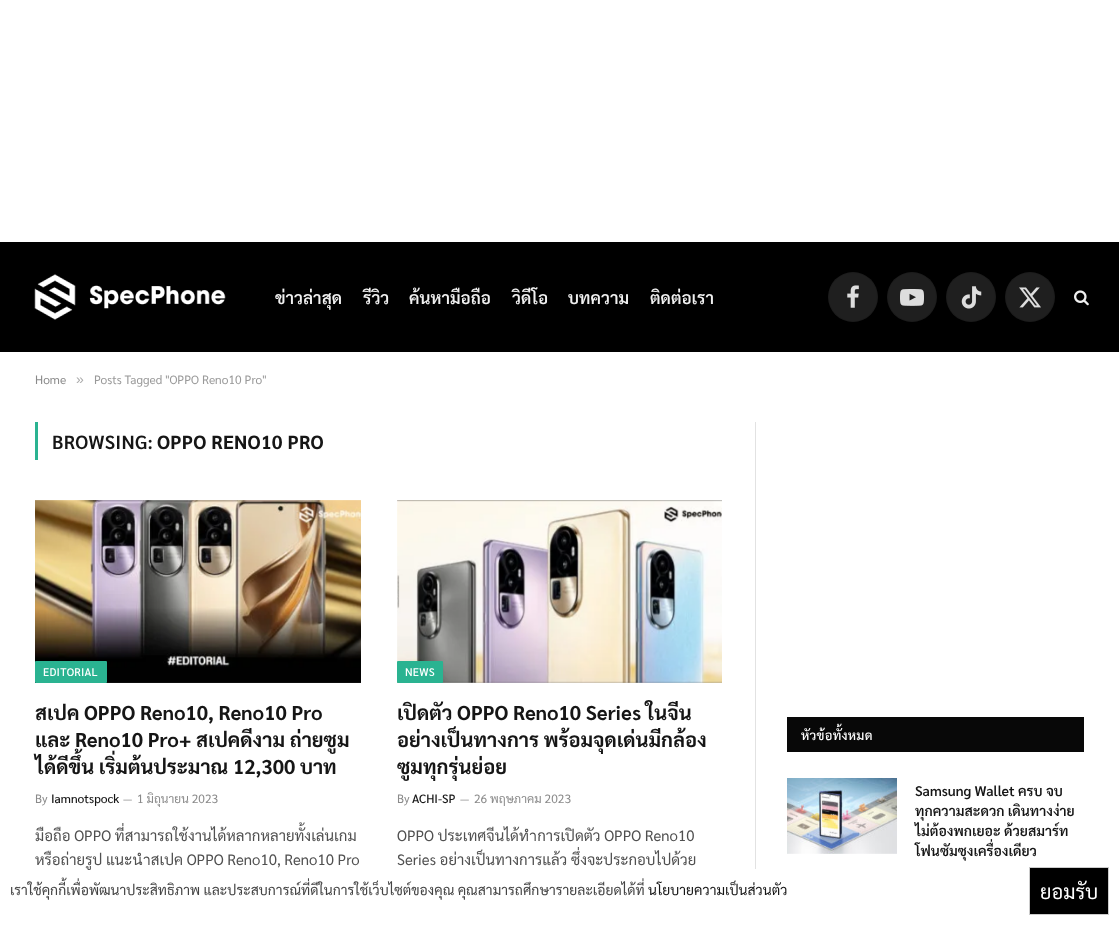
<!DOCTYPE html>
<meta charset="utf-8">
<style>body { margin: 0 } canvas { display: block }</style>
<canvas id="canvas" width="1119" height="931"></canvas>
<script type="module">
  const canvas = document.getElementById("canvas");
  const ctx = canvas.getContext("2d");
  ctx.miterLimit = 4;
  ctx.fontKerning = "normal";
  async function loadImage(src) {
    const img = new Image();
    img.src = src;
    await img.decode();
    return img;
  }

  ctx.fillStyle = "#ffffff";
  ctx.fillRect(0, 0, 1119, 931);
  ctx.fillStyle = "#000000";
  ctx.fillRect(0, 242, 1119, 110);
  ctx.drawImage(await loadImage("img1.png"), 34, 274, 192, 46);
  ctx.font = "600 17px Sarabun";
  ctx.fillStyle = "#f0f0f0";
  ctx.fillText("ข่าวล่าสุด", 275, 304);
  ctx.fillText("รีวิว", 363, 304);
  ctx.fillText("ค้นหามือถือ", 409, 304);
  ctx.fillText("วิดีโอ", 512, 304);
  ctx.fillText("บทความ", 568, 304);
  ctx.fillText("ติดต่อเรา", 650, 304);
  ctx.fillStyle = "#1f1f1f";
  ctx.beginPath();
  ctx.arc(853, 297, 25, 0, Math.PI * 2);
  ctx.fill();
  ctx.beginPath();
  ctx.arc(853, 297, 24.5, 0, Math.PI * 2);
  ctx.strokeStyle = "rgba(0, 0, 0, 0.09)";
  ctx.stroke();
  ctx.drawImage(await loadImage("img2.png"), 847, 285, 12, 23);
  ctx.beginPath();
  ctx.arc(912, 297, 25, 0, Math.PI * 2);
  ctx.fill();
  ctx.beginPath();
  ctx.arc(912, 297, 24.5, 0, Math.PI * 2);
  ctx.stroke();
  ctx.drawImage(await loadImage("img3.png"), 900, 289, 24, 17);
  ctx.beginPath();
  ctx.arc(971, 297, 25, 0, Math.PI * 2);
  ctx.fill();
  ctx.beginPath();
  ctx.arc(971, 297, 24.5, 0, Math.PI * 2);
  ctx.stroke();
  ctx.drawImage(await loadImage("img4.png"), 961, 286, 21, 23);
  ctx.beginPath();
  ctx.arc(1030, 297, 25, 0, Math.PI * 2);
  ctx.fill();
  ctx.beginPath();
  ctx.arc(1030, 297, 24.5, 0, Math.PI * 2);
  ctx.stroke();
  ctx.drawImage(await loadImage("img5.png"), 1019, 287, 22, 21);
  ctx.drawImage(await loadImage("img6.png"), 1074, 290, 15, 16);
  ctx.font = "12px Sarabun";
  ctx.fillStyle = "#8a8a8a";
  ctx.fillText("Home", 35, 384);
  ctx.font = "14px Liberation Sans";
  ctx.fillStyle = "#adadad";
  ctx.fillText("»", 76, 384);
  ctx.font = "12px Sarabun";
  ctx.fillStyle = "#999999";
  ctx.fillText("Posts Tagged \"OPPO Reno10 Pro\"", 94, 384);
  ctx.fillStyle = "#2ab391";
  ctx.fillRect(35, 422, 3, 38);
  ctx.letterSpacing = "0.25px";
  ctx.font = "600 19px Sarabun";
  ctx.fillStyle = "#161616";
  ctx.fillText("BROWSING:", 52, 449);
  ctx.font = "bold 19px Sarabun";
  ctx.fillText("OPPO RENO10 PRO", 157, 449);
  ctx.drawImage(await loadImage("img7.png"), 35, 500, 326, 183);
  ctx.fillStyle = "#2ab391";
  ctx.beginPath();
  ctx.roundRect(35, 661, 72, 22, 1);
  ctx.fill();
  ctx.font = "500 11px Sarabun";
  ctx.fillStyle = "#ffffff";
  ctx.fillText("EDITORIAL", 43, 676);
  ctx.letterSpacing = "0px";
  ctx.font = "bold 20px Sarabun";
  ctx.fillStyle = "#161616";
  ctx.fillText("สเปค OPPO Reno10, Reno10 Pro", 35, 720);
  ctx.fillText("และ Reno10 Pro+ สเปคดีงาม ถ่ายซูม", 35, 747);
  ctx.fillText("ได้ดีขึ้น เริ่มต้นประมาณ 12,300 บาท", 35, 774);
  ctx.font = "12px Sarabun";
  ctx.fillStyle = "#8a8a8a";
  ctx.fillText("By", 35, 803);
  ctx.font = "500 12px Sarabun";
  ctx.fillStyle = "#161616";
  ctx.fillText("Iamnotspock", 51, 803);
  ctx.font = "11px Sarabun";
  ctx.fillStyle = "#8a8a8a";
  ctx.fillText("—", 123, 803);
  ctx.font = "12px Sarabun";
  ctx.fillText("1 มิถุนายน 2023", 137, 803);
  ctx.font = "15px Sarabun";
  ctx.fillStyle = "#505050";
  ctx.fillText("มือถือ OPPO ที่สามารถใช้งานได้หลากหลายทั้งเล่นเกม", 35, 841);
  ctx.fillText("หรือถ่ายรูป แนะนำสเปค OPPO Reno10, Reno10 Pro", 35, 865);
  ctx.drawImage(await loadImage("img8.png"), 397, 500, 325, 183);
  ctx.fillStyle = "#2ab391";
  ctx.beginPath();
  ctx.roundRect(397, 661, 46, 22, 1);
  ctx.fill();
  ctx.letterSpacing = "0.25px";
  ctx.font = "500 11px Sarabun";
  ctx.fillStyle = "#ffffff";
  ctx.fillText("NEWS", 405, 676);
  ctx.letterSpacing = "0px";
  ctx.font = "bold 20px Sarabun";
  ctx.fillStyle = "#161616";
  ctx.fillText("เปิดตัว OPPO Reno10 Series ในจีน", 397, 720);
  ctx.fillText("อย่างเป็นทางการ พร้อมจุดเด่นมีกล้อง", 397, 747);
  ctx.fillText("ซูมทุกรุ่นย่อย", 397, 774);
  ctx.font = "12px Sarabun";
  ctx.fillStyle = "#8a8a8a";
  ctx.fillText("By", 397, 803);
  ctx.font = "500 12px Sarabun";
  ctx.fillStyle = "#161616";
  ctx.fillText("ACHI-SP", 412, 803);
  ctx.font = "11px Sarabun";
  ctx.fillStyle = "#8a8a8a";
  ctx.fillText("—", 460, 803);
  ctx.font = "12px Sarabun";
  ctx.fillText("26 พฤษภาคม 2023", 474, 803);
  ctx.font = "15px Sarabun";
  ctx.fillStyle = "#505050";
  ctx.fillText("OPPO ประเทศจีนได้ทำการเปิดตัว OPPO Reno10", 397, 841);
  ctx.fillText("Series อย่างเป็นทางการแล้ว ซึ่งจะประกอบไปด้วย", 397, 865);
  ctx.fillStyle = "#e2e2e2";
  ctx.fillRect(755, 422, 1, 447);
  ctx.fillStyle = "#080808";
  ctx.fillRect(787, 717, 297, 35);
  ctx.letterSpacing = "0.25px";
  ctx.font = "500 13px Sarabun";
  ctx.fillStyle = "#ffffff";
  ctx.fillText("หัวข้อทั้งหมด", 801, 740);
  ctx.drawImage(await loadImage("img9.png"), 787, 778, 110, 76);
  ctx.letterSpacing = "0px";
  ctx.font = "600 14px Sarabun";
  ctx.fillStyle = "#161616";
  ctx.fillText("Samsung Wallet ครบ จบ", 915, 796);
  ctx.fillText("ทุกความสะดวก เดินทางง่าย", 915, 816);
  ctx.fillText("ไม่ต้องพกเยอะ ด้วยสมาร์ท", 915, 836);
  ctx.fillText("โฟนซัมซุงเครื่องเดียว", 915, 856);
  ctx.fillStyle = "#ffffff";
  ctx.fillRect(80, 869, 4, 1);
  ctx.font = "14px Sarabun";
  ctx.fillStyle = "#444444";
  ctx.fillText("เราใช้คุกกี้เพื่อพัฒนาประสิทธิภาพ และประสบการณ์ที่ดีในการใช้เว็บไซต์ของคุณ คุณสามารถศึกษารายละเอียดได้ที่", 10, 895);
  ctx.fillStyle = "#161616";
  ctx.fillText("นโยบายความเป็นส่วนตัว", 648, 895);
  ctx.fillStyle = "#000000";
  ctx.beginPath();
  ctx.rect(1029.5, 867.5, 79, 47);
  ctx.fill();
  ctx.strokeStyle = "#cccccc";
  ctx.stroke();
  ctx.font = "20px Sarabun";
  ctx.fillStyle = "#ffffff";
  ctx.fillText("ยอมรับ", 1040, 899);
</script>
